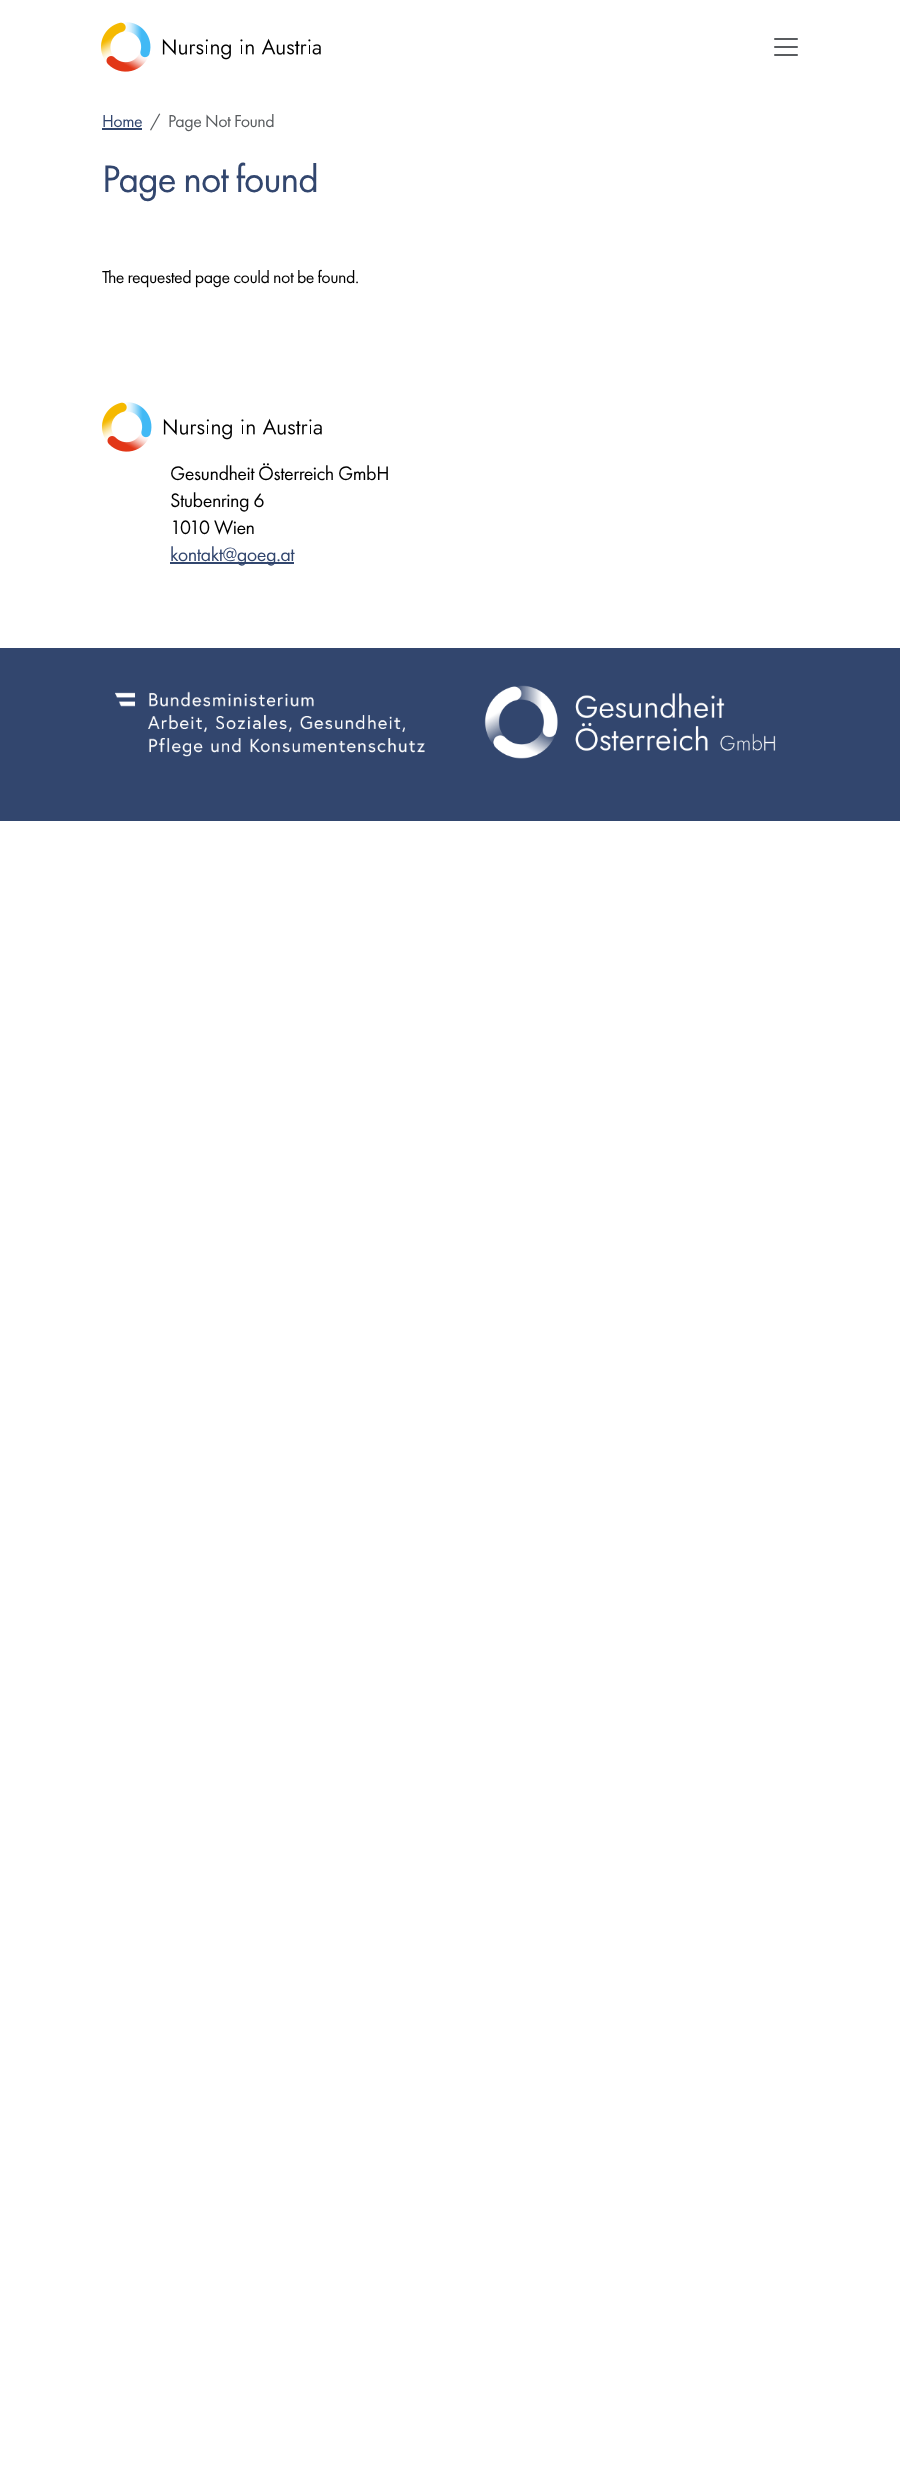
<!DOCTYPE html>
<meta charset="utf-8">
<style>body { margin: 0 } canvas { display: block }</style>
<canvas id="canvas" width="900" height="2466"></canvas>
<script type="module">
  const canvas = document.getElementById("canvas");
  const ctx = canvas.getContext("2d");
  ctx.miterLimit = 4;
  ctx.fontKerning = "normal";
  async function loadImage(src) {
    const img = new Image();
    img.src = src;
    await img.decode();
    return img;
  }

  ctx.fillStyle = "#ffffff";
  ctx.fillRect(0, 0, 900, 2466);
  ctx.drawImage(await loadImage("img1.png"), 101, 22, 220, 50);
  ctx.drawImage(await loadImage("img2.png"), 774, 38, 24, 18);
  ctx.letterSpacing = "-0.5px";
  ctx.font = "16px Futura PT";
  ctx.fillStyle = "#32466e";
  ctx.fillText("Home", 102, 127);
  ctx.fillRect(102, 128, 40, 2);
  ctx.fillStyle = "#595c5f";
  ctx.fillText("/", 150, 127);
  ctx.fillText("Page Not Found", 168, 127);
  ctx.letterSpacing = "-1.25px";
  ctx.font = "35.5px Futura PT";
  ctx.fillStyle = "#32466e";
  ctx.fillText("Page not found", 102, 192);
  ctx.letterSpacing = "-0.5px";
  ctx.font = "16px Futura PT";
  ctx.fillStyle = "#000000";
  ctx.fillText("The requested page could not be found.", 102, 283);
  ctx.drawImage(await loadImage("img1.png"), 102, 402, 220, 50);
  ctx.font = "18px Futura PT";
  ctx.fillText("Gesundheit Österreich GmbH", 170, 480);
  ctx.fillText("Stubenring 6", 170, 507);
  ctx.fillText("1010 Wien", 170, 534);
  ctx.fillStyle = "#32466e";
  ctx.fillRect(170, 562, 124, 2);
  ctx.fillText("kontakt@goeg.at", 170, 561);
  ctx.fillRect(0, 648, 102, 173);
  ctx.fillRect(102, 648, 798, 173);
  ctx.drawImage(await loadImage("img3.png"), 115, 691, 310, 66);
  ctx.drawImage(await loadImage("img4.png"), 484, 685, 292, 74);
</script>
